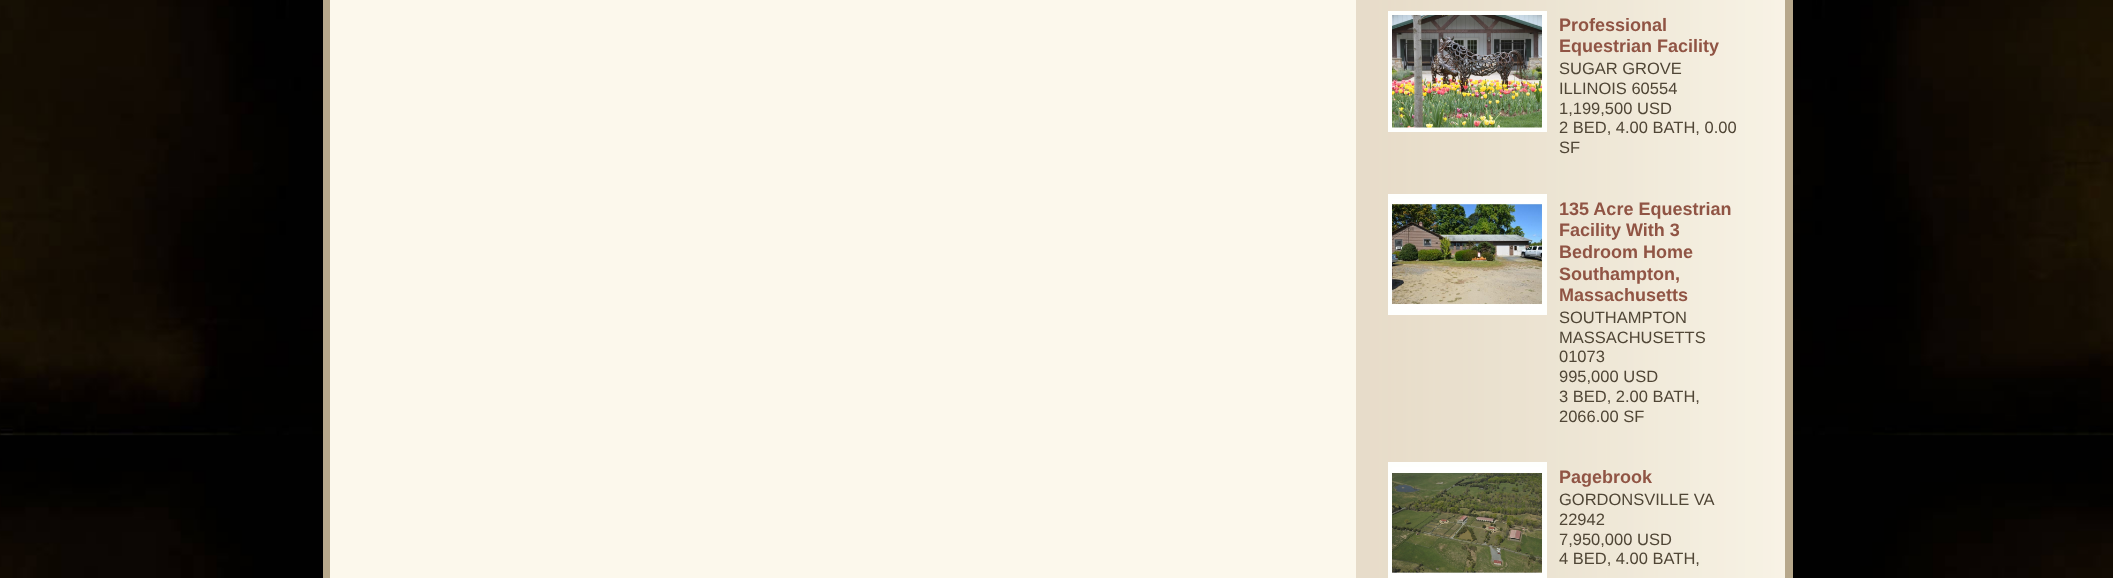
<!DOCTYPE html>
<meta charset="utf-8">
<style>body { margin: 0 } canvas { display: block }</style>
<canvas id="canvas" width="2113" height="578"></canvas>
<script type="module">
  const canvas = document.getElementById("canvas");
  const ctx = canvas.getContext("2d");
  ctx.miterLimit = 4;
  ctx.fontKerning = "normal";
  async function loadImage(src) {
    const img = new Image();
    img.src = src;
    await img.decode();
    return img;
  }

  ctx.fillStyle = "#ffffff";
  ctx.fillRect(0, 0, 2113, 578);
  ctx.drawImage(await loadImage("img1.png"), 0, 0, 2113, 578);
  ctx.fillStyle = "#fcf8ec";
  ctx.fillRect(330, 0, 1026, 578);
  ctx.drawImage(await loadImage("img2.png"), 1356, 0, 429, 578);
  ctx.fillStyle = "#b7a88b";
  ctx.fillRect(1785, 0, 8, 578);
  ctx.fillRect(323, 0, 7, 578);
  ctx.strokeStyle = "#fefffd";
  ctx.lineWidth = 5;
  ctx.strokeRect(1390.5, 13.5, 154, 116);
  ctx.drawImage(await loadImage("img3.png"), 1392, 15, 150, 113);
  ctx.font = "bold 18px Liberation Sans";
  ctx.fillStyle = "#905444";
  ctx.fillText("Professional", 1559, 31);
  ctx.fillText("Equestrian Facility", 1559, 52);
  ctx.font = "16.5px Liberation Sans";
  ctx.fillStyle = "#504636";
  ctx.fillText("SUGAR GROVE", 1559, 74);
  ctx.fillText("ILLINOIS 60554", 1559, 94);
  ctx.fillText("1,199,500 USD", 1559, 114);
  ctx.fillText("2 BED, 4.00 BATH, 0.00", 1559, 133);
  ctx.fillText("SF", 1559, 153);
  ctx.strokeRect(1390.5, 196.5, 154, 116);
  ctx.drawImage(await loadImage("img4.png"), 1392, 199, 150, 111);
  ctx.font = "bold 18px Liberation Sans";
  ctx.fillStyle = "#905444";
  ctx.fillText("135 Acre Equestrian", 1559, 215);
  ctx.fillText("Facility With 3", 1559, 236);
  ctx.fillText("Bedroom Home", 1559, 258);
  ctx.fillText("Southampton,", 1559, 280);
  ctx.fillText("Massachusetts", 1559, 301);
  ctx.font = "16.5px Liberation Sans";
  ctx.fillStyle = "#504636";
  ctx.fillText("SOUTHAMPTON", 1559, 323);
  ctx.fillText("MASSACHUSETTS", 1559, 343);
  ctx.fillText("01073", 1559, 362);
  ctx.fillText("995,000 USD", 1559, 382);
  ctx.fillText("3 BED, 2.00 BATH,", 1559, 402);
  ctx.fillText("2066.00 SF", 1559, 422);
  ctx.strokeRect(1390.5, 464.5, 154, 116);
  ctx.drawImage(await loadImage("img5.png"), 1392, 467, 150, 111);
  ctx.font = "bold 18px Liberation Sans";
  ctx.fillStyle = "#905444";
  ctx.fillText("Pagebrook", 1559, 483);
  ctx.font = "16.5px Liberation Sans";
  ctx.fillStyle = "#504636";
  ctx.fillText("GORDONSVILLE VA", 1559, 505);
  ctx.fillText("22942", 1559, 525);
  ctx.fillText("7,950,000 USD", 1559, 545);
  ctx.fillText("4 BED, 4.00 BATH,", 1559, 564);
</script>
